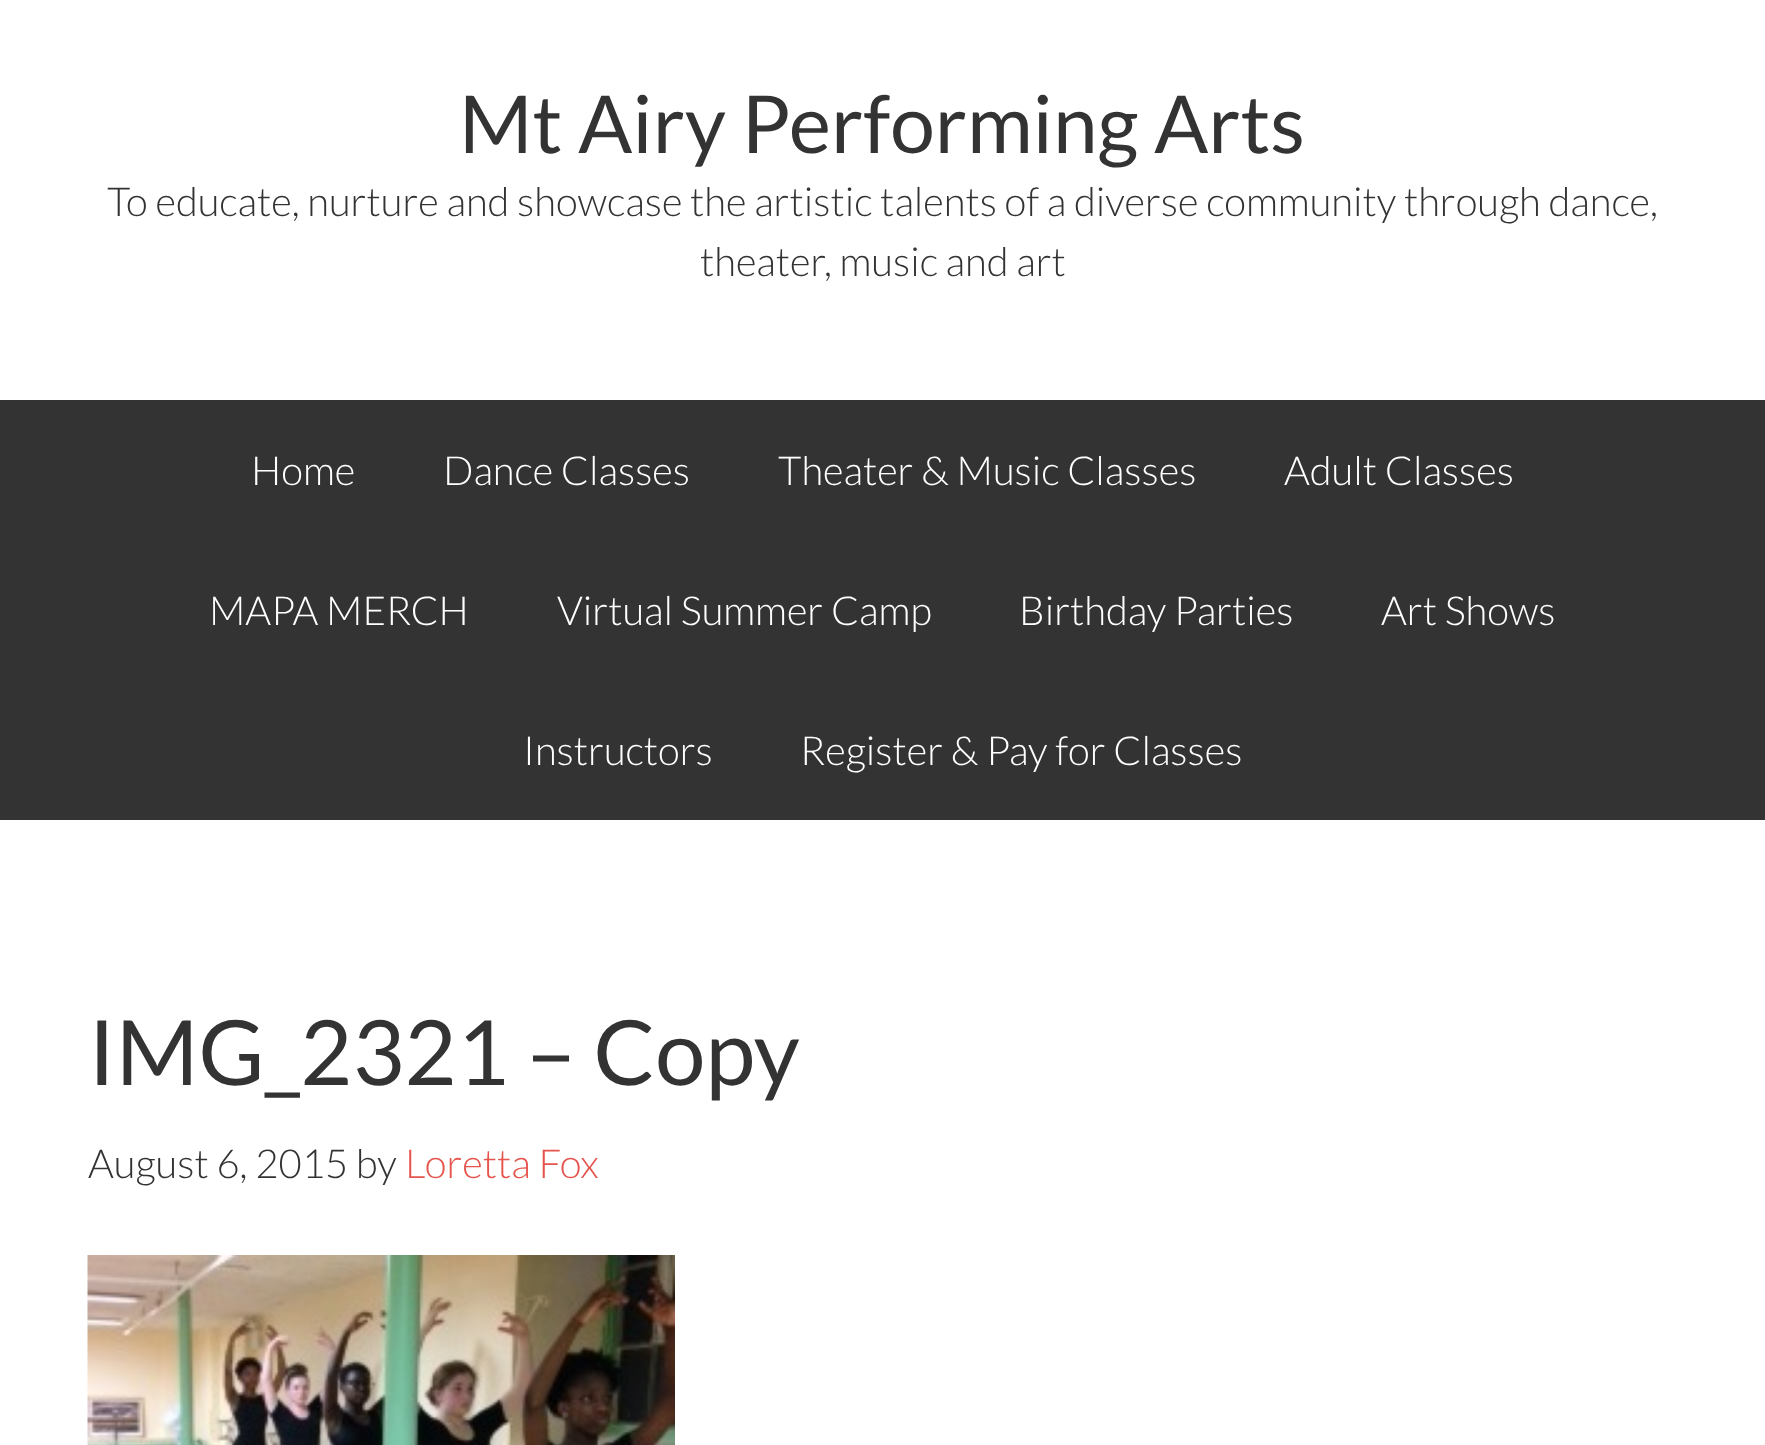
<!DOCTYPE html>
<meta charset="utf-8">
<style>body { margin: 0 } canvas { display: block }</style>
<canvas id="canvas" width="1765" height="1445"></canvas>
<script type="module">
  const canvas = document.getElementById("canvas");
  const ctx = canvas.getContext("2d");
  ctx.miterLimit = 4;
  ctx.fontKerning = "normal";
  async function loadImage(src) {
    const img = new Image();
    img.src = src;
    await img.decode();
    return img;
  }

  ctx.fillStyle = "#ffffff";
  ctx.fillRect(0, 0, 1765, 1445);
  ctx.font = "80px Lato";
  ctx.fillStyle = "#333333";
  ctx.fillText("Mt Airy Performing Arts", 459, 153);
  ctx.font = "300 40px Lato";
  ctx.fillText("To educate, nurture and showcase the artistic talents of a diverse community through dance,", 107, 216);
  ctx.fillText("theater, music and art", 700, 276);
  ctx.fillRect(0, 400, 1765, 420);
  ctx.fillStyle = "#ffffff";
  ctx.fillText("Home", 251, 485);
  ctx.fillText("Dance Classes", 443, 485);
  ctx.fillText("Theater & Music Classes", 778, 485);
  ctx.fillText("Adult Classes", 1284, 485);
  ctx.fillText("MAPA MERCH", 209, 625);
  ctx.fillText("Virtual Summer Camp", 557, 625);
  ctx.fillText("Birthday Parties", 1019, 625);
  ctx.fillText("Art Shows", 1381, 625);
  ctx.fillText("Instructors", 523, 765);
  ctx.fillText("Register & Pay for Classes", 800, 765);
  ctx.font = "90px Lato";
  ctx.fillStyle = "#333333";
  ctx.fillText("IMG_2321 – Copy", 88, 1085);
  ctx.font = "300 40px Lato";
  ctx.fillText("August 6, 2015 by", 88, 1178);
  ctx.fillStyle = "#e5554e";
  ctx.fillText("Loretta Fox", 405, 1178);
  ctx.drawImage(await loadImage("img1.png"), 87, 1255, 588, 190);
</script>
